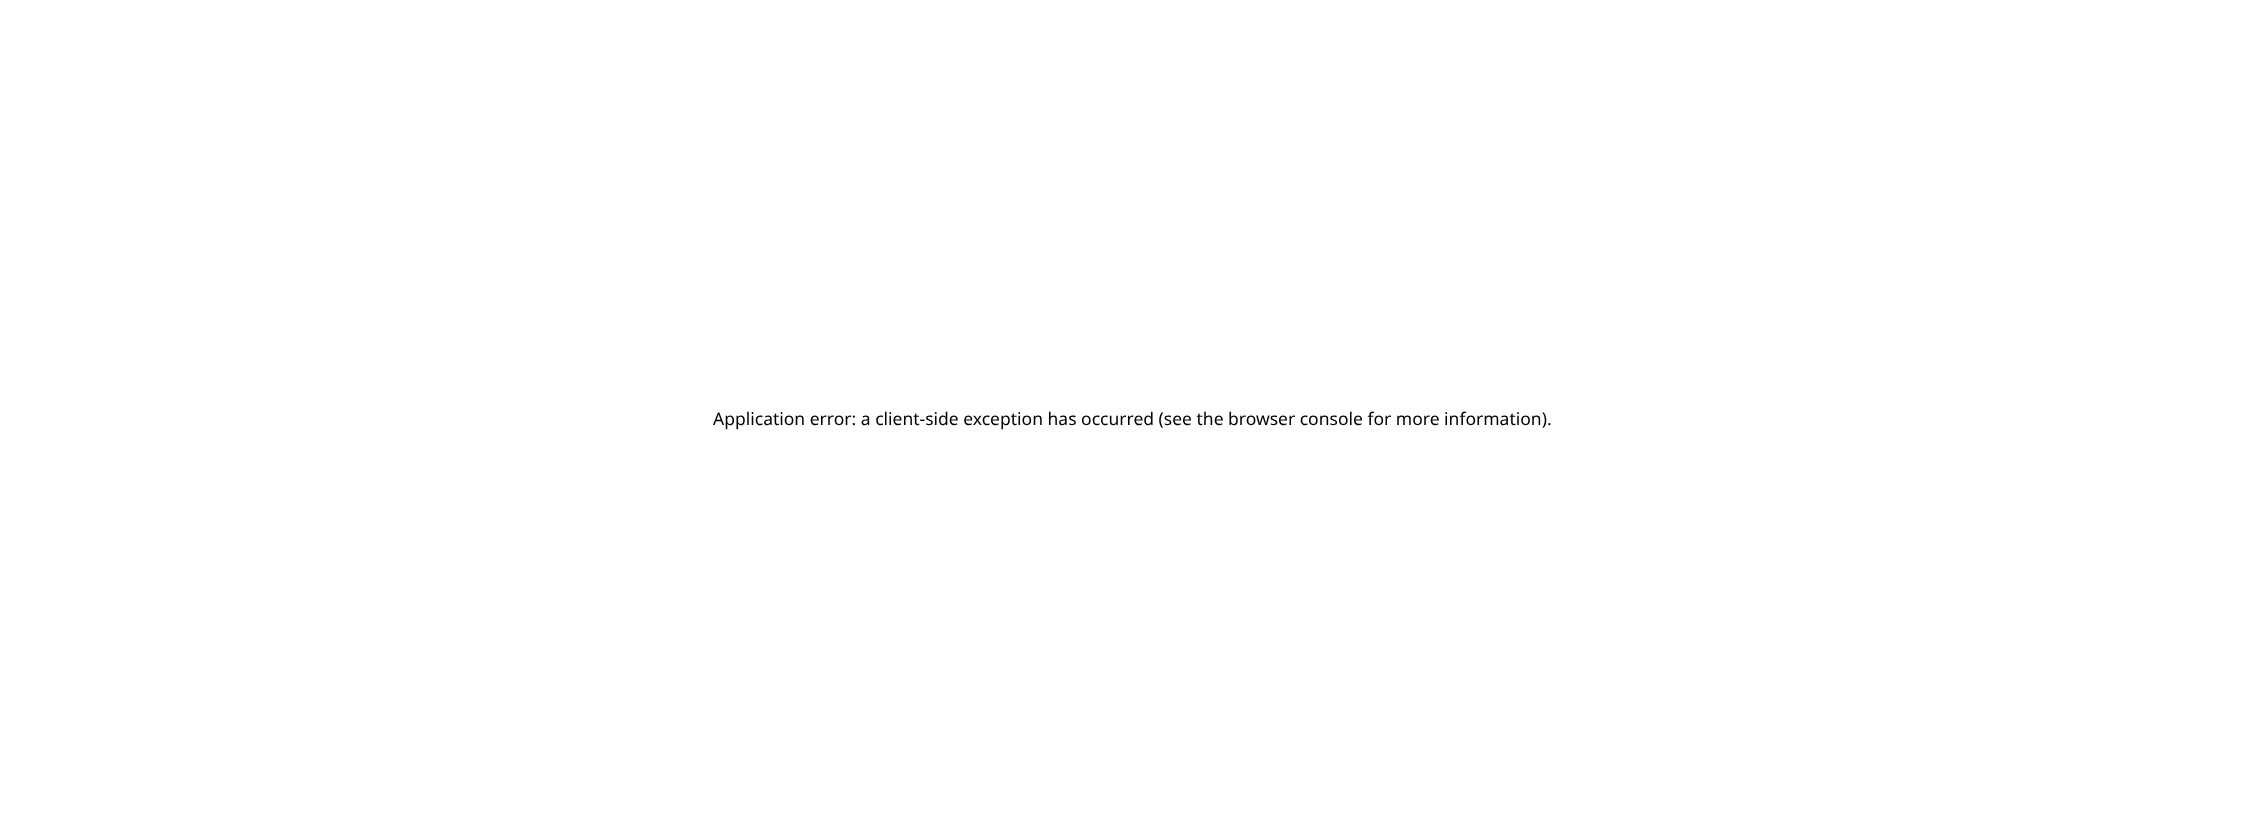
<!DOCTYPE html>
<meta charset="utf-8">
<style>body { margin: 0 } canvas { display: block }</style>
<canvas id="canvas" width="2264" height="817"></canvas>
<script type="module">
  const canvas = document.getElementById("canvas");
  const ctx = canvas.getContext("2d");
  ctx.miterLimit = 4;
  ctx.fontKerning = "normal";

  ctx.fillStyle = "#ffffff";
  ctx.fillRect(0, 0, 2264, 817);
  ctx.font = "17.5px Noto Sans";
  ctx.fillStyle = "#000000";
  ctx.fillText("Application error: a client-side exception has occurred (see the browser console for more information).", 713, 425);
</script>
